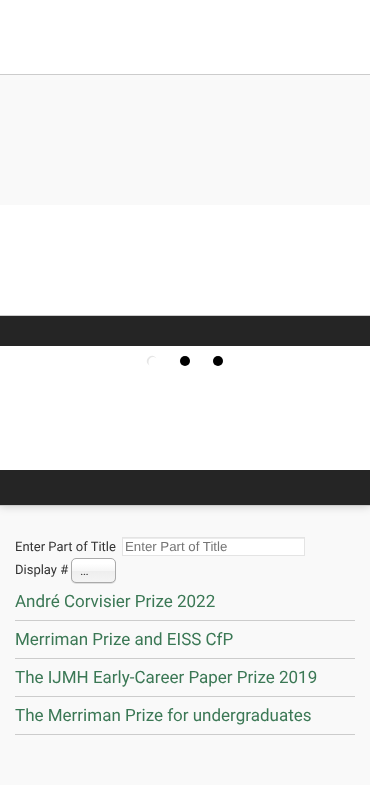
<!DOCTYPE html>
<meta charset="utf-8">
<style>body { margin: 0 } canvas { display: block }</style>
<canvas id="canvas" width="370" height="785"></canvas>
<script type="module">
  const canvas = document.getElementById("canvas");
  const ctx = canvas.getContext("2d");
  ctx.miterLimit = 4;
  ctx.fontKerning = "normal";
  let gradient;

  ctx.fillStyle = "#f9f9f9";
  ctx.fillRect(0, 0, 370, 785);
  ctx.fillStyle = "#ffffff";
  ctx.fillRect(0, 0, 370, 74);
  ctx.fillStyle = "#cccccc";
  ctx.fillRect(0, 74, 370, 1);
  ctx.fillStyle = "rgba(0, 0, 0, 0.2)";
  ctx.filter = "blur(5px)";
  ctx.beginPath();
  ctx.rect(0, 316, 370, 190);
  ctx.fill();
  ctx.filter = "none";
  ctx.fillStyle = "#ffffff";
  ctx.fillRect(0, 205, 370, 110);
  ctx.fillStyle = "#cccccc";
  ctx.fillRect(0, 315, 370, 1);
  ctx.fillStyle = "#252525";
  ctx.fillRect(0, 316, 370, 189);
  ctx.fillStyle = "#cccccc";
  ctx.fillRect(0, 505, 370, 1);
  ctx.fillStyle = "#ffffff";
  ctx.fillRect(0, 346, 370, 124);
  ctx.fillStyle = "#e6e6e6";
  ctx.beginPath();
  ctx.moveTo(153, 357);
  ctx.bezierCurveTo(154.5, 357, 155.5, 357.5, 156.5, 358.5);
  ctx.bezierCurveTo(152, 351, 142, 361, 149.5, 365.5);
  ctx.bezierCurveTo(147.5, 362.5, 148.5, 357, 153, 357);
  ctx.closePath();
  ctx.fill();
  ctx.fillStyle = "#000000";
  ctx.beginPath();
  ctx.arc(185, 361, 5, 0, Math.PI * 2);
  ctx.fill();
  ctx.fillStyle = "rgba(0, 0, 0, 0.1)";
  ctx.beginPath();
  ctx.moveTo(186, 357);
  ctx.bezierCurveTo(187.5, 357, 188.5, 357.5, 189.5, 358.5);
  ctx.bezierCurveTo(185, 351, 175, 361, 182.5, 365.5);
  ctx.bezierCurveTo(180.5, 362.5, 181.5, 357, 186, 357);
  ctx.closePath();
  ctx.fill();
  ctx.fillStyle = "#000000";
  ctx.beginPath();
  ctx.arc(218, 361, 5, 0, Math.PI * 2);
  ctx.fill();
  ctx.fillStyle = "rgba(0, 0, 0, 0.1)";
  ctx.beginPath();
  ctx.moveTo(219, 357);
  ctx.bezierCurveTo(220.5, 357, 221.5, 357.5, 222.5, 358.5);
  ctx.bezierCurveTo(218, 351, 208, 361, 215.5, 365.5);
  ctx.bezierCurveTo(213.5, 362.5, 214.5, 357, 219, 357);
  ctx.closePath();
  ctx.fill();
  ctx.font = "13px Roboto";
  ctx.fillStyle = "#333333";
  ctx.fillText("Enter Part of Title", 15, 551);
  ctx.fillStyle = "#ffffff";
  ctx.fillRect(123, 539, 181, 16);
  ctx.fillStyle = "#ececec";
  ctx.fillRect(123, 538, 181, 1);
  ctx.strokeStyle = "#e4e4e4";
  ctx.strokeRect(122.5, 537.5, 182, 18);
  ctx.font = "13.25px Liberation Sans";
  ctx.fillStyle = "#757575";
  ctx.fillText("Enter Part of Title", 125, 551);
  ctx.font = "13px Roboto";
  ctx.fillStyle = "#333333";
  ctx.fillText("Display #", 15, 574);
  ctx.fillStyle = "rgba(0, 0, 0, 0.1)";
  ctx.filter = "blur(0.5px)";
  ctx.beginPath();
  ctx.roundRect(71, 559, 45, 25, 5);
  ctx.fill();
  ctx.filter = "none";
  gradient = ctx.createLinearGradient(94, 559, 94, 582);
  gradient.addColorStop(0.2, "#ffffff");
  gradient.addColorStop(0.5, "#f6f6f6");
  gradient.addColorStop(0.52, "#eeeeee");
  gradient.addColorStop(1, "#f4f4f4");
  ctx.fillStyle = gradient;
  ctx.beginPath();
  ctx.roundRect(72, 559, 43, 23, 4);
  ctx.fill();
  ctx.beginPath();
  ctx.roundRect(71.5, 558.5, 44, 24, 4.5);
  ctx.strokeStyle = "#aaaaaa";
  ctx.stroke();
  ctx.fillStyle = "#444444";
  ctx.fillText("…", 80, 575);
  ctx.fillStyle = "#cccccc";
  ctx.fillRect(15, 620, 340, 1);
  ctx.font = "17px Roboto";
  ctx.fillStyle = "#3b7855";
  ctx.fillText("André Corvisier Prize 2022", 15, 607);
  ctx.fillStyle = "#cccccc";
  ctx.fillRect(15, 658, 340, 1);
  ctx.fillStyle = "#3b7855";
  ctx.fillText("Merriman Prize and EISS CfP", 15, 645);
  ctx.fillStyle = "#cccccc";
  ctx.fillRect(15, 696, 340, 1);
  ctx.fillStyle = "#3b7855";
  ctx.fillText("The IJMH Early-Career Paper Prize 2019", 15, 683);
  ctx.fillStyle = "#cccccc";
  ctx.fillRect(15, 734, 340, 1);
  ctx.fillStyle = "#3b7855";
  ctx.fillText("The Merriman Prize for undergraduates", 15, 721);
</script>
